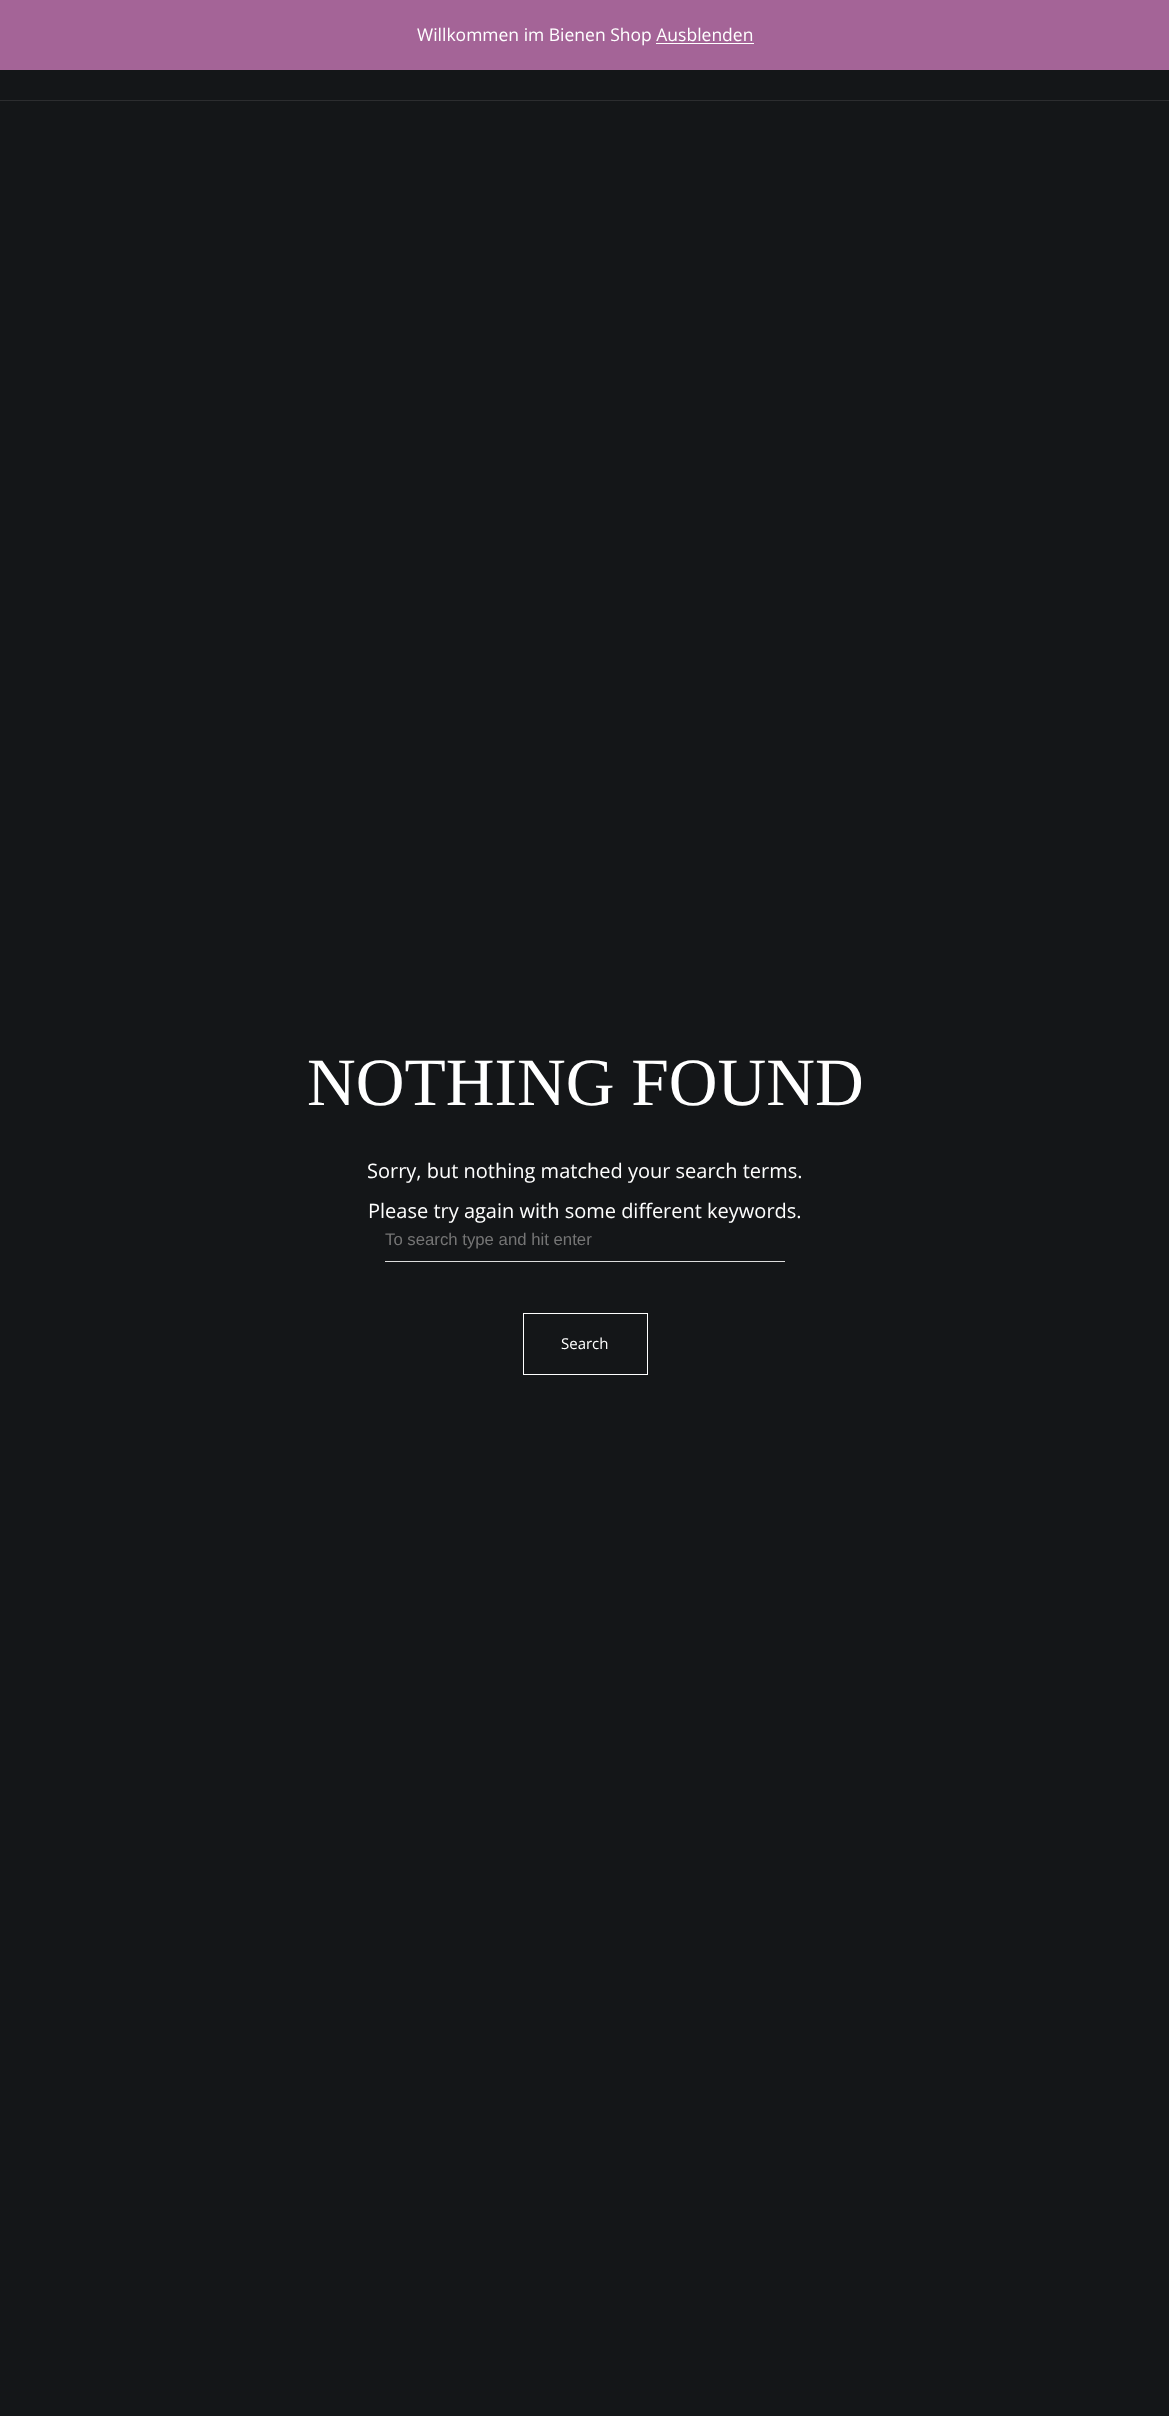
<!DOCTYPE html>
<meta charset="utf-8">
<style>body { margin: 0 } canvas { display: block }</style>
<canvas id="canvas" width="1169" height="2416"></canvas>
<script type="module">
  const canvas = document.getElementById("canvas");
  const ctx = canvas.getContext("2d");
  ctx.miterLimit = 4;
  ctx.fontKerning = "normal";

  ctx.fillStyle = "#141618";
  ctx.fillRect(0, 0, 1169, 2416);
  ctx.fillStyle = "#a46497";
  ctx.fillRect(0, 0, 1169, 70);
  ctx.font = "17.5px Open Sans";
  ctx.fillStyle = "#ffffff";
  ctx.fillText("Willkommen im Bienen Shop Ausblenden", 417, 41);
  ctx.fillRect(656, 43, 98, 1);
  ctx.fillStyle = "#2c2d2f";
  ctx.fillRect(0, 100, 1169, 1);
  ctx.font = "67.5px Liberation Serif";
  ctx.fillStyle = "#ffffff";
  ctx.fillText("NOTHING FOUND", 307, 1105);
  ctx.font = "20px Open Sans";
  ctx.fillText("Sorry, but nothing matched your search terms.", 367, 1178);
  ctx.fillText("Please try again with some different keywords.", 368, 1218);
  ctx.fillStyle = "#dddddd";
  ctx.fillRect(385, 1261, 400, 1);
  ctx.font = "16.75px Liberation Sans";
  ctx.fillStyle = "#757575";
  ctx.fillText("To search type and hit enter", 385, 1245);
  ctx.strokeStyle = "#ffffff";
  ctx.strokeRect(523.5, 1313.5, 124, 61);
  ctx.font = "15px Open Sans";
  ctx.fillStyle = "#ffffff";
  ctx.fillText("Search", 561, 1349);
</script>
